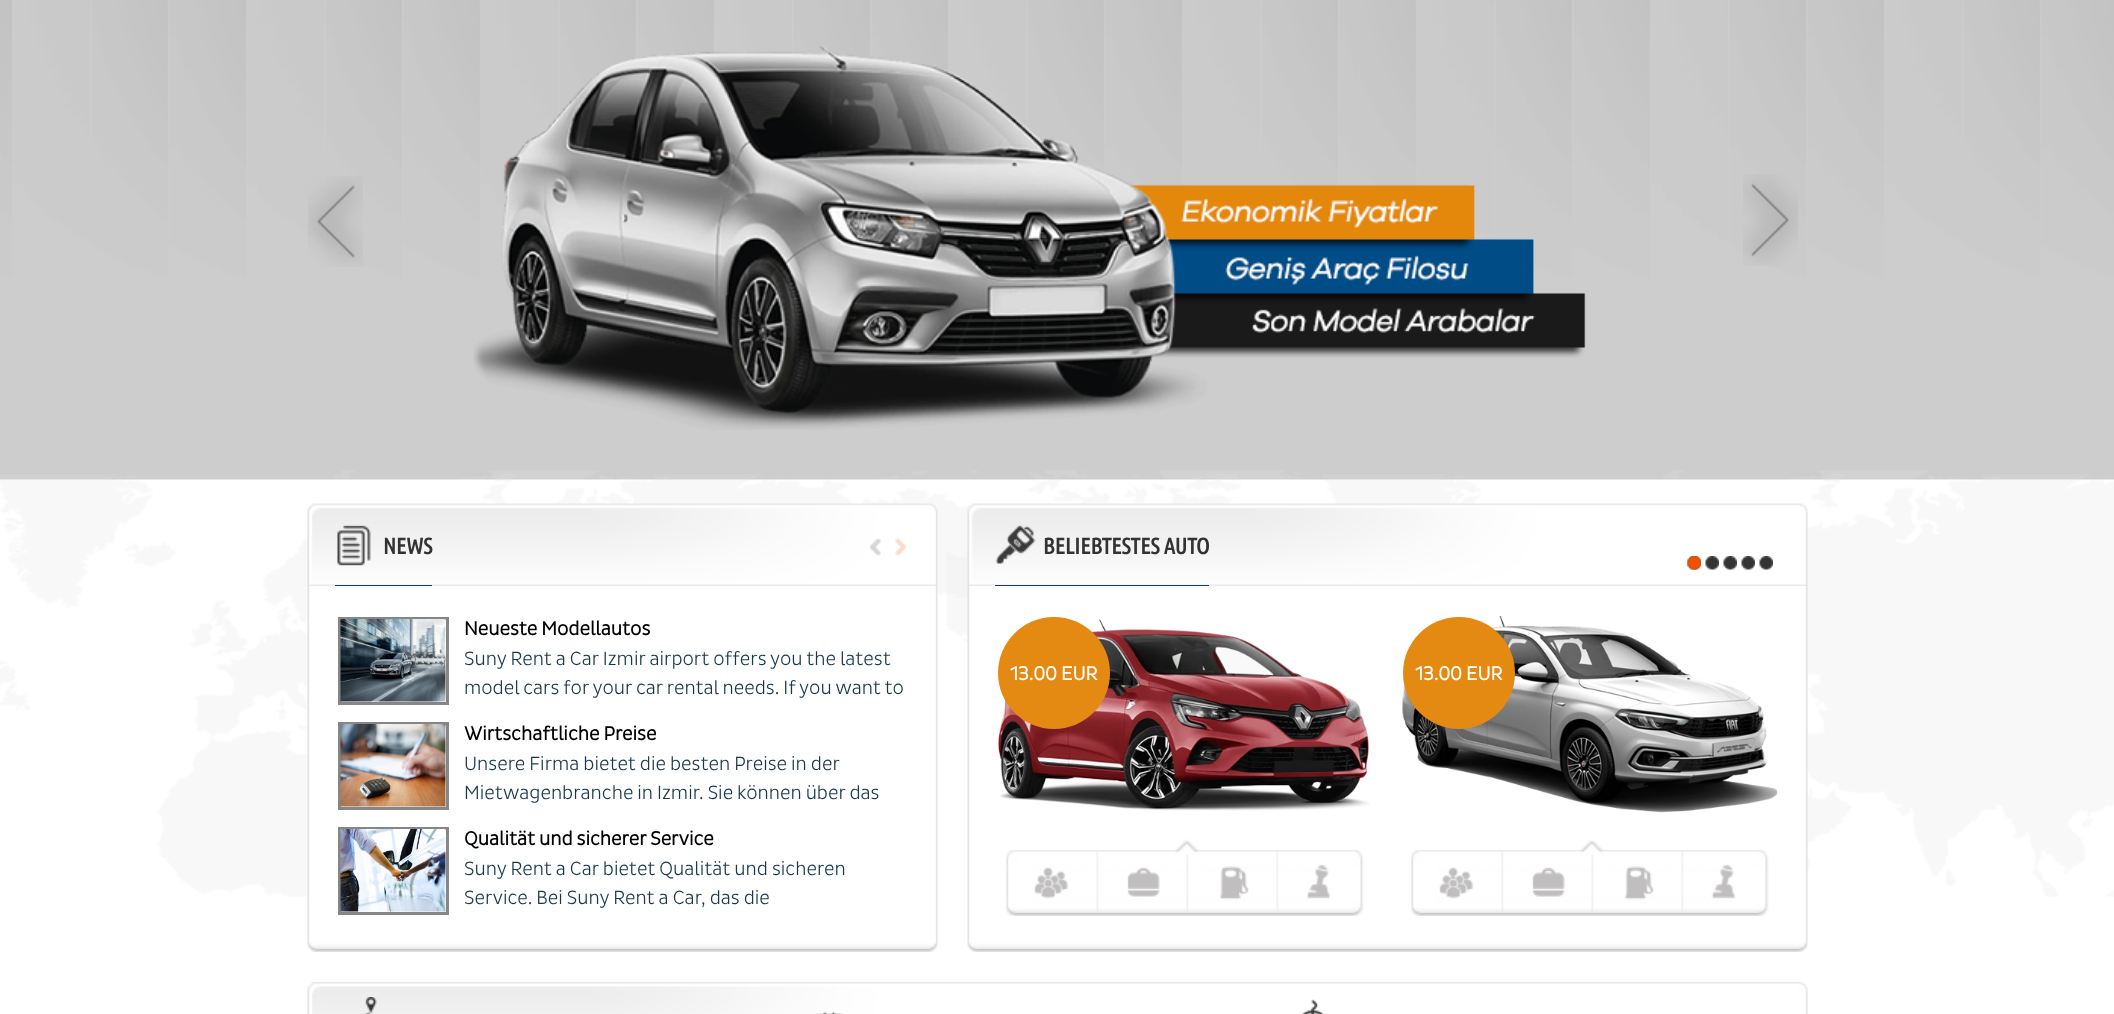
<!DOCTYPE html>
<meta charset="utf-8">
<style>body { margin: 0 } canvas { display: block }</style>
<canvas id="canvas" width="2114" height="1014"></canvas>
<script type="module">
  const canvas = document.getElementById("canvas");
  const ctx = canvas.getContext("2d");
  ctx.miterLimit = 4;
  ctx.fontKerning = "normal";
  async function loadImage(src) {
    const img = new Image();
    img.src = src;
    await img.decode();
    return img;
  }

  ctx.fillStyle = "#ffffff";
  ctx.fillRect(0, 0, 2114, 1014);
  ctx.drawImage(await loadImage("img1.png"), 0, 0, 2114, 480);
  ctx.drawImage(await loadImage("img2.png"), 308, 176, 55, 91);
  ctx.drawImage(await loadImage("img3.png"), 473, 46, 1113, 384);
  ctx.drawImage(await loadImage("img4.png"), 1743, 174, 55, 92);
  ctx.drawImage(await loadImage("img5.png"), 0, 474, 2114, 423);
  ctx.drawImage(await loadImage("img6.png"), 307, 503, 631, 83);
  ctx.fillStyle = "#0e3f68";
  ctx.fillRect(335, 585, 97, 1);
  ctx.font = "bold 22.5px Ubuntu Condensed";
  ctx.fillStyle = "#333333";
  ctx.fillText("NEWS", 383, 554);
  ctx.drawImage(await loadImage("img7.png"), 307, 586, 631, 356);
  ctx.drawImage(await loadImage("img8.png"), 870, 538, 11, 18);
  ctx.drawImage(await loadImage("img9.png"), 895, 538, 11, 18);
  ctx.strokeStyle = "#868686";
  ctx.lineWidth = 3;
  ctx.strokeRect(339.5, 618.5, 108, 85);
  ctx.drawImage(await loadImage("img10.png"), 340, 619, 106, 83);
  ctx.font = "bold 19.5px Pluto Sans";
  ctx.fillStyle = "#000000";
  ctx.fillText("Neueste Modellautos", 464, 635);
  ctx.font = "19.5px Pluto Sans";
  ctx.fillStyle = "#18384d";
  ctx.fillText("Suny Rent a Car Izmir airport offers you the latest", 464, 665);
  ctx.fillText("model cars for your car rental needs. If you want to", 464, 694);
  ctx.strokeRect(339.5, 723.5, 108, 85);
  ctx.drawImage(await loadImage("img11.png"), 340, 724, 106, 83);
  ctx.font = "bold 19.5px Pluto Sans";
  ctx.fillStyle = "#000000";
  ctx.fillText("Wirtschaftliche Preise", 464, 740);
  ctx.font = "19.5px Pluto Sans";
  ctx.fillStyle = "#18384d";
  ctx.fillText("Unsere Firma bietet die besten Preise in der", 464, 770);
  ctx.fillText("Mietwagenbranche in Izmir. Sie können über das", 464, 799);
  ctx.strokeRect(339.5, 828.5, 108, 85);
  ctx.drawImage(await loadImage("img12.png"), 340, 829, 106, 83);
  ctx.font = "bold 19.5px Pluto Sans";
  ctx.fillStyle = "#000000";
  ctx.fillText("Qualität und sicherer Service", 464, 845);
  ctx.font = "19.5px Pluto Sans";
  ctx.fillStyle = "#18384d";
  ctx.fillText("Suny Rent a Car bietet Qualität und sicheren", 464, 875);
  ctx.fillText("Service. Bei Suny Rent a Car, das die", 464, 904);
  ctx.drawImage(await loadImage("img13.png"), 307, 941, 631, 11);
  ctx.drawImage(await loadImage("img14.png"), 967, 503, 841, 83);
  ctx.fillStyle = "#0e3f68";
  ctx.fillRect(995, 585, 214, 1);
  ctx.font = "bold 22.5px Ubuntu Condensed";
  ctx.fillStyle = "#333333";
  ctx.fillText("BELIEBTESTES AUTO", 1043, 554);
  ctx.drawImage(await loadImage("img15.png"), 967, 586, 841, 356);
  ctx.drawImage(await loadImage("img16.png"), 1687, 556, 14, 14);
  ctx.drawImage(await loadImage("img17.png"), 1687, 556, 14, 14);
  ctx.drawImage(await loadImage("img16.png"), 1705, 556, 14, 14);
  ctx.drawImage(await loadImage("img16.png"), 1723, 556, 14, 14);
  ctx.drawImage(await loadImage("img16.png"), 1741, 556, 14, 14);
  ctx.drawImage(await loadImage("img16.png"), 1759, 556, 14, 14);
  ctx.drawImage(await loadImage("img18.png"), 998, 619, 372, 192);
  ctx.fillStyle = "#e48a12";
  ctx.beginPath();
  ctx.arc(1054, 673, 56, 0, Math.PI * 2);
  ctx.fill();
  ctx.font = "bold 19.5px Pluto Sans";
  ctx.fillStyle = "#ffffff";
  ctx.fillText("13.00 EUR", 1010, 680);
  ctx.drawImage(await loadImage("img19.png"), 1006, 839, 358, 77);
  ctx.drawImage(await loadImage("img20.png"), 1402, 616, 376, 197);
  ctx.fillStyle = "#e48a12";
  ctx.beginPath();
  ctx.arc(1459, 673, 56, 0, Math.PI * 2);
  ctx.fill();
  ctx.fillStyle = "#ffffff";
  ctx.fillText("13.00 EUR", 1415, 680);
  ctx.drawImage(await loadImage("img21.png"), 1411, 839, 358, 77);
  ctx.drawImage(await loadImage("img22.png"), 967, 941, 841, 11);
  ctx.drawImage(await loadImage("img23.png"), 307, 982, 1501, 32);
  ctx.drawImage(await loadImage("img24.png"), 364, 997, 13, 17);
  ctx.drawImage(await loadImage("img25.png"), 816, 1011, 27, 3);
  ctx.drawImage(await loadImage("img26.png"), 1301, 999, 23, 15);
</script>
